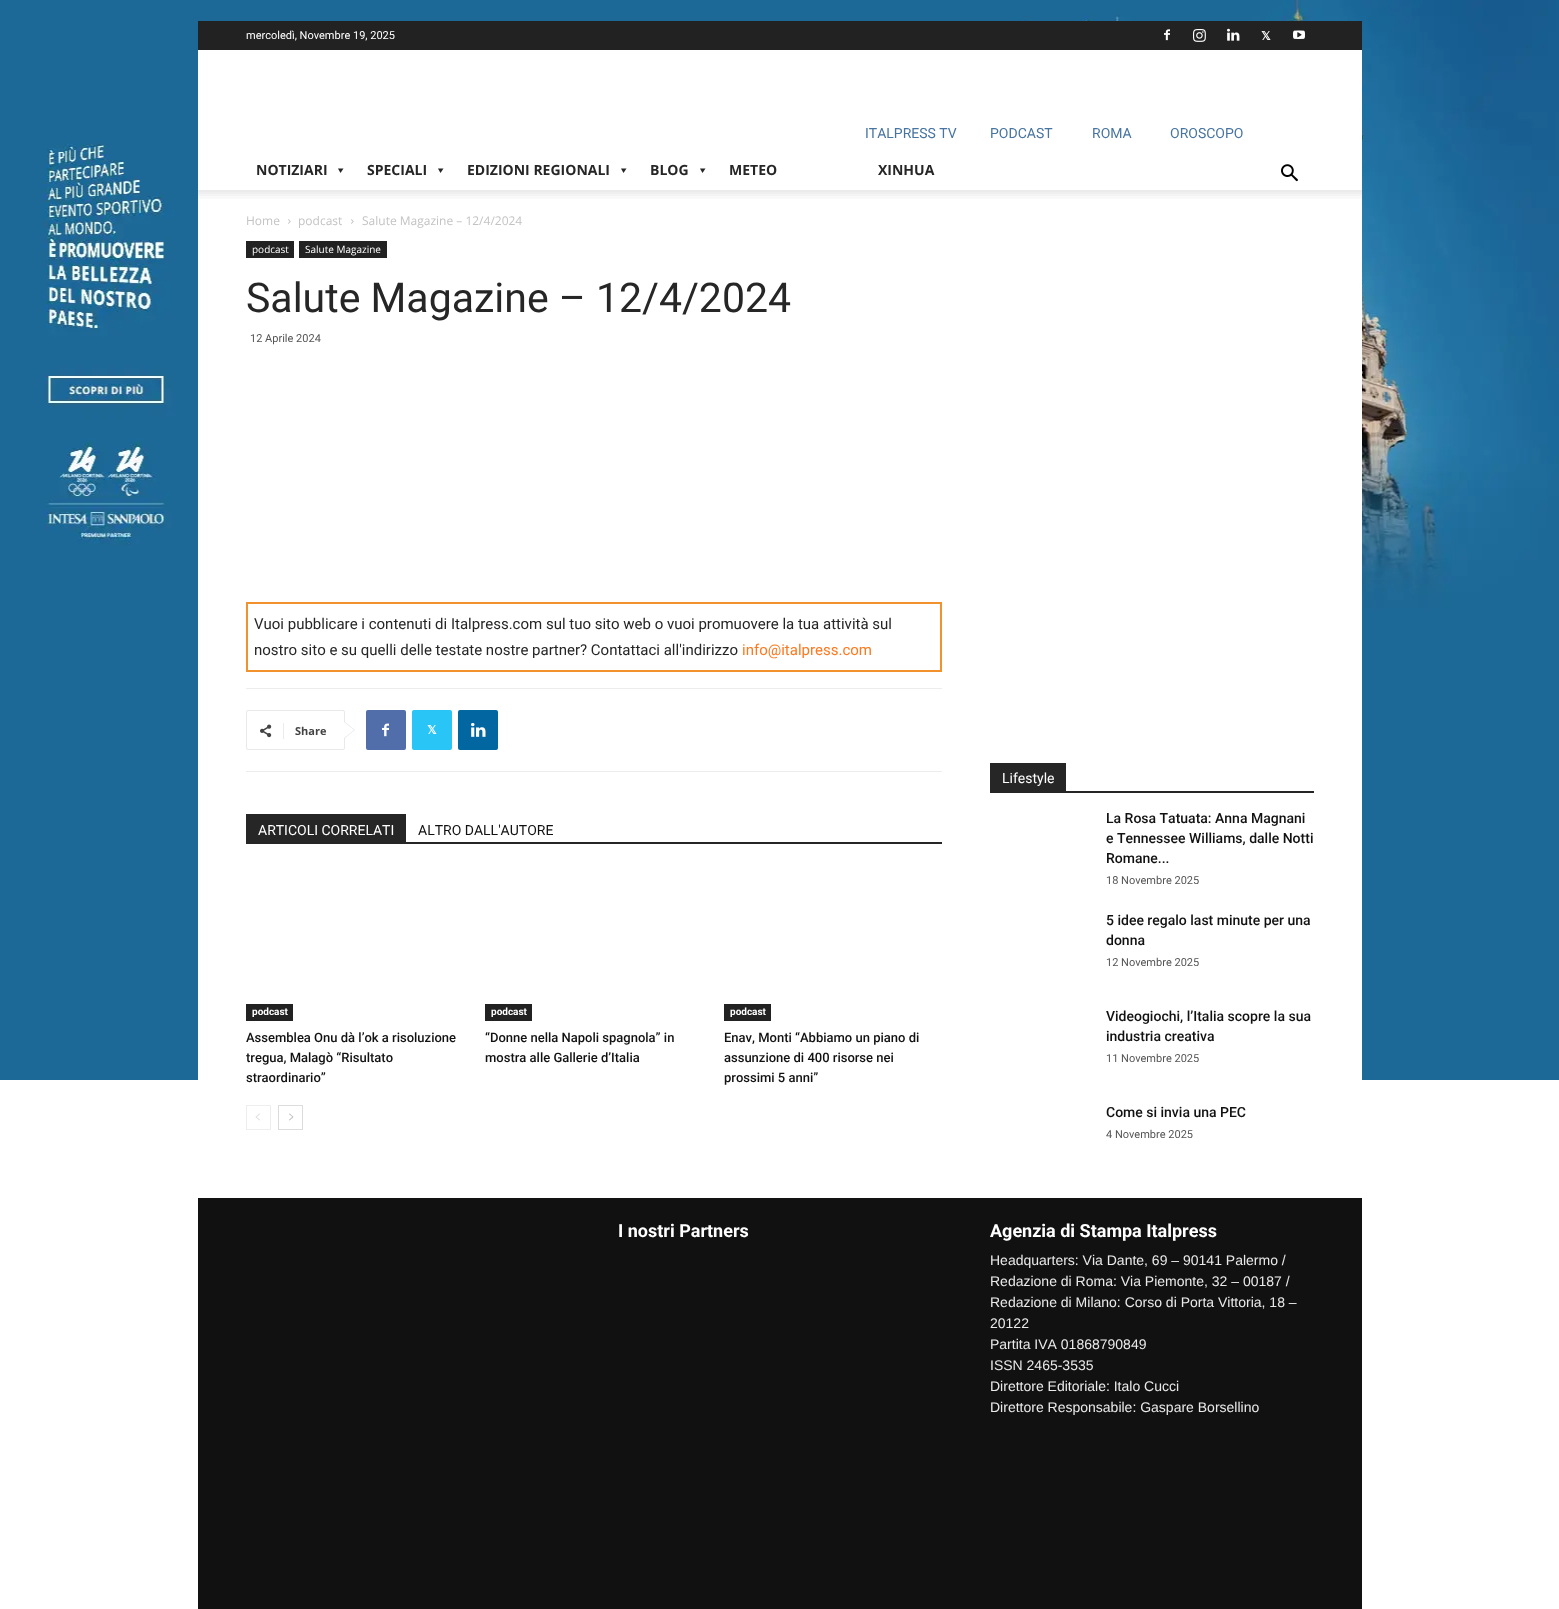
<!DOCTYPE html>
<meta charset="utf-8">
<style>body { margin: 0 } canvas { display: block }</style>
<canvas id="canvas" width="1559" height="1609"></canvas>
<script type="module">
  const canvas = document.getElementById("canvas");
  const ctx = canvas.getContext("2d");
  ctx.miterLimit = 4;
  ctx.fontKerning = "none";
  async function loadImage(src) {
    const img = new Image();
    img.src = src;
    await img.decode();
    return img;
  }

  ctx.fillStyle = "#ffffff";
  ctx.fillRect(0, 0, 1559, 1609);
  ctx.drawImage(await loadImage("img1.png"), 0, 0, 1559, 1080);
  ctx.fillStyle = "#222222";
  ctx.fillRect(198, 21, 1164, 29);
  ctx.font = "11px Roboto";
  ctx.fillStyle = "#ffffff";
  ctx.fillText("mercoledì, Novembre 19, 2025", 246, 39);
  ctx.drawImage(await loadImage("img2.png"), 1164, 29, 6, 12);
  ctx.drawImage(await loadImage("img3.png"), 1193, 29, 13, 13);
  ctx.drawImage(await loadImage("img4.png"), 1227, 28, 13, 13);
  ctx.font = "bold 12px DejaVu Sans";
  ctx.fillText("𝕏", 1261, 40);
  ctx.drawImage(await loadImage("img5.png"), 1293, 30, 12, 9);
  ctx.fillRect(198, 50, 1164, 140);
  ctx.font = "14px Roboto";
  ctx.fillStyle = "#4774a1";
  ctx.fillText("ITALPRESS TV", 865, 138);
  ctx.fillText("PODCAST", 990, 138);
  ctx.fillText("ROMA", 1092, 138);
  ctx.fillText("OROSCOPO", 1170, 138);
  ctx.font = "bold 14px Open Sans";
  ctx.fillStyle = "#262626";
  ctx.fillText("NOTIZIARI", 256, 175);
  ctx.beginPath();
  ctx.moveTo(343.5, 168.5);
  ctx.lineTo(340.5, 173);
  ctx.lineTo(338, 168.5);
  ctx.closePath();
  ctx.fill();
  ctx.fillText("SPECIALI", 367, 175);
  ctx.beginPath();
  ctx.moveTo(443.5, 168.5);
  ctx.lineTo(440.5, 173);
  ctx.lineTo(438, 168.5);
  ctx.closePath();
  ctx.fill();
  ctx.fillText("EDIZIONI REGIONALI", 467, 175);
  ctx.beginPath();
  ctx.moveTo(626.5, 168.5);
  ctx.lineTo(623.5, 173);
  ctx.lineTo(621, 168.5);
  ctx.closePath();
  ctx.fill();
  ctx.fillText("BLOG", 650, 175);
  ctx.beginPath();
  ctx.moveTo(705.5, 168.5);
  ctx.lineTo(702.5, 173);
  ctx.lineTo(700, 168.5);
  ctx.closePath();
  ctx.fill();
  ctx.fillText("METEO", 729, 175);
  ctx.fillText("XINHUA", 878, 175);
  ctx.drawImage(await loadImage("img6.png"), 1281, 164, 17, 18);
  ctx.fillStyle = "#ffffff";
  ctx.fillRect(198, 190, 1164, 890);
  ctx.drawImage(await loadImage("img7.png"), 198, 190, 1164, 9);
  ctx.font = "12px Open Sans";
  ctx.fillStyle = "#c3c3c3";
  ctx.fillText("Home", 246, 225);
  ctx.drawImage(await loadImage("img8.png"), 288, 219, 3, 5);
  ctx.fillText("podcast", 298, 225);
  ctx.drawImage(await loadImage("img8.png"), 351, 219, 3, 5);
  ctx.fillText("Salute Magazine – 12/4/2024", 362, 225);
  ctx.fillStyle = "#222222";
  ctx.fillRect(246, 241, 48, 17);
  ctx.font = "10px Open Sans";
  ctx.fillStyle = "#ffffff";
  ctx.fillText("podcast", 252, 253);
  ctx.fillStyle = "#222222";
  ctx.fillRect(299, 241, 88, 17);
  ctx.fillStyle = "#ffffff";
  ctx.fillText("Salute Magazine", 305, 253);
  ctx.font = "41px Roboto";
  ctx.fillStyle = "#262626";
  ctx.fillText("Salute Magazine – 12/4/2024", 246, 312);
  ctx.font = "11px Roboto";
  ctx.fillStyle = "#555555";
  ctx.fillText("12 Aprile 2024", 250, 342);
  ctx.strokeStyle = "#f2922d";
  ctx.lineWidth = 2;
  ctx.strokeRect(247, 603, 694, 68);
  ctx.font = "15px Roboto";
  ctx.fillStyle = "#262626";
  ctx.fillText("Vuoi pubblicare i contenuti di Italpress.com sul tuo sito web o vuoi promuovere la tua attività sul", 254, 629);
  ctx.fillText("nostro sito e su quelli delle testate nostre partner? Contattaci all'indirizzo", 254, 655);
  ctx.fillStyle = "#ff781d";
  ctx.fillText("info@italpress.com", 742, 655);
  ctx.fillStyle = "#ededed";
  ctx.fillRect(246, 688, 696, 1);
  ctx.fillRect(246, 771, 696, 1);
  ctx.beginPath();
  ctx.roundRect(246.5, 710.5, 98, 39, 1.5);
  ctx.strokeStyle = "#e9e9e9";
  ctx.lineWidth = 1;
  ctx.stroke();
  ctx.fillStyle = "#e9e9e9";
  ctx.beginPath();
  ctx.moveTo(344, 739);
  ctx.lineTo(344, 721);
  ctx.lineTo(355, 730);
  ctx.closePath();
  ctx.fill();
  ctx.drawImage(await loadImage("img9.png"), 260, 724, 12, 14);
  ctx.fillStyle = "#ebebeb";
  ctx.fillRect(283, 723, 1, 16);
  ctx.font = "bold 11px Open Sans";
  ctx.fillStyle = "#444444";
  ctx.fillText("Share", 295, 735);
  ctx.fillStyle = "#ffffff";
  ctx.beginPath();
  ctx.moveTo(344, 738);
  ctx.lineTo(344, 722);
  ctx.lineTo(354, 730);
  ctx.closePath();
  ctx.fill();
  ctx.fillStyle = "#516eab";
  ctx.beginPath();
  ctx.roundRect(366, 710, 40, 40, 2);
  ctx.fill();
  ctx.drawImage(await loadImage("img10.png"), 382, 723, 7, 14);
  ctx.fillStyle = "#29c5f6";
  ctx.beginPath();
  ctx.roundRect(412, 710, 40, 40, 2);
  ctx.fill();
  ctx.font = "bold 12px DejaVu Sans";
  ctx.fillStyle = "#ffffff";
  ctx.fillText("𝕏", 427, 734);
  ctx.fillStyle = "#0266a0";
  ctx.beginPath();
  ctx.roundRect(458, 710, 40, 40, 2);
  ctx.fill();
  ctx.drawImage(await loadImage("img11.png"), 471, 723, 15, 14);
  ctx.fillStyle = "#262626";
  ctx.fillRect(246, 842, 696, 2);
  ctx.fillRect(246, 814, 160, 28);
  ctx.font = "14px Roboto";
  ctx.fillStyle = "#ffffff";
  ctx.fillText("ARTICOLI CORRELATI", 258, 835);
  ctx.fillStyle = "#111111";
  ctx.fillText("ALTRO DALL'AUTORE", 418, 835);
  ctx.fillStyle = "#222222";
  ctx.fillRect(246, 1004, 47, 17);
  ctx.font = "bold 10px Roboto";
  ctx.fillStyle = "#ffffff";
  ctx.fillText("podcast", 252, 1015);
  ctx.font = "500 13px Roboto";
  ctx.fillStyle = "#111111";
  ctx.fillText("Assemblea Onu dà l’ok a risoluzione", 246, 1042);
  ctx.fillText("tregua, Malagò “Risultato", 246, 1062);
  ctx.fillText("straordinario”", 246, 1082);
  ctx.fillStyle = "#222222";
  ctx.fillRect(485, 1004, 47, 17);
  ctx.font = "bold 10px Roboto";
  ctx.fillStyle = "#ffffff";
  ctx.fillText("podcast", 491, 1015);
  ctx.font = "500 13px Roboto";
  ctx.fillStyle = "#111111";
  ctx.fillText("“Donne nella Napoli spagnola” in", 485, 1042);
  ctx.fillText("mostra alle Gallerie d’Italia", 485, 1062);
  ctx.fillStyle = "#222222";
  ctx.fillRect(724, 1004, 47, 17);
  ctx.font = "bold 10px Roboto";
  ctx.fillStyle = "#ffffff";
  ctx.fillText("podcast", 730, 1015);
  ctx.font = "500 13px Roboto";
  ctx.fillStyle = "#111111";
  ctx.fillText("Enav, Monti “Abbiamo un piano di", 724, 1042);
  ctx.fillText("assunzione di 400 risorse nei", 724, 1062);
  ctx.fillText("prossimi 5 anni”", 724, 1082);
  ctx.strokeStyle = "#eeeeee";
  ctx.strokeRect(246.5, 1105.5, 24, 24);
  ctx.drawImage(await loadImage("img12.png"), 255, 1113, 5, 8);
  ctx.strokeStyle = "#dcdcdc";
  ctx.strokeRect(278.5, 1105.5, 24, 24);
  ctx.drawImage(await loadImage("img13.png"), 289, 1113, 5, 8);
  ctx.fillStyle = "#262626";
  ctx.fillRect(990, 791, 324, 2);
  ctx.fillRect(990, 763, 76, 28);
  ctx.font = "14px Roboto";
  ctx.fillStyle = "#ffffff";
  ctx.fillText("Lifestyle", 1002, 783);
  ctx.font = "500 14px Roboto";
  ctx.fillStyle = "#111111";
  ctx.fillText("La Rosa Tatuata: Anna Magnani", 1106, 823);
  ctx.fillText("e Tennessee Williams, dalle Notti", 1106, 843);
  ctx.fillText("Romane...", 1106, 863);
  ctx.font = "11px Roboto";
  ctx.fillStyle = "#555555";
  ctx.fillText("18 Novembre 2025", 1106, 884);
  ctx.font = "500 14px Roboto";
  ctx.fillStyle = "#111111";
  ctx.fillText("5 idee regalo last minute per una", 1106, 925);
  ctx.fillText("donna", 1106, 945);
  ctx.font = "11px Roboto";
  ctx.fillStyle = "#555555";
  ctx.fillText("12 Novembre 2025", 1106, 966);
  ctx.font = "500 14px Roboto";
  ctx.fillStyle = "#111111";
  ctx.fillText("Videogiochi, l’Italia scopre la sua", 1106, 1021);
  ctx.fillText("industria creativa", 1106, 1041);
  ctx.font = "11px Roboto";
  ctx.fillStyle = "#555555";
  ctx.fillText("11 Novembre 2025", 1106, 1062);
  ctx.font = "500 14px Roboto";
  ctx.fillStyle = "#111111";
  ctx.fillText("Come si invia una PEC", 1106, 1117);
  ctx.font = "11px Roboto";
  ctx.fillStyle = "#555555";
  ctx.fillText("4 Novembre 2025", 1106, 1138);
  ctx.fillStyle = "#111111";
  ctx.fillRect(198, 1198, 1164, 411);
  ctx.font = "bold 18px Roboto";
  ctx.fillStyle = "#ffffff";
  ctx.fillText("I nostri Partners", 618, 1237);
  ctx.fillText("Agenzia di Stampa Italpress", 990, 1237);
  ctx.font = "14px Liberation Sans";
  ctx.fillStyle = "#eaeaea";
  ctx.fillText("Headquarters: Via Dante, 69 – 90141 Palermo /", 990, 1265);
  ctx.fillText("Redazione di Roma: Via Piemonte, 32 – 00187 /", 990, 1286);
  ctx.fillText("Redazione di Milano: Corso di Porta Vittoria, 18 –", 990, 1307);
  ctx.fillText("20122", 990, 1328);
  ctx.fillText("Partita IVA 01868790849", 990, 1349);
  ctx.fillText("ISSN 2465-3535", 990, 1370);
  ctx.fillText("Direttore Editoriale: Italo Cucci", 990, 1391);
  ctx.fillText("Direttore Responsabile: Gaspare Borsellino", 990, 1412);
</script>
